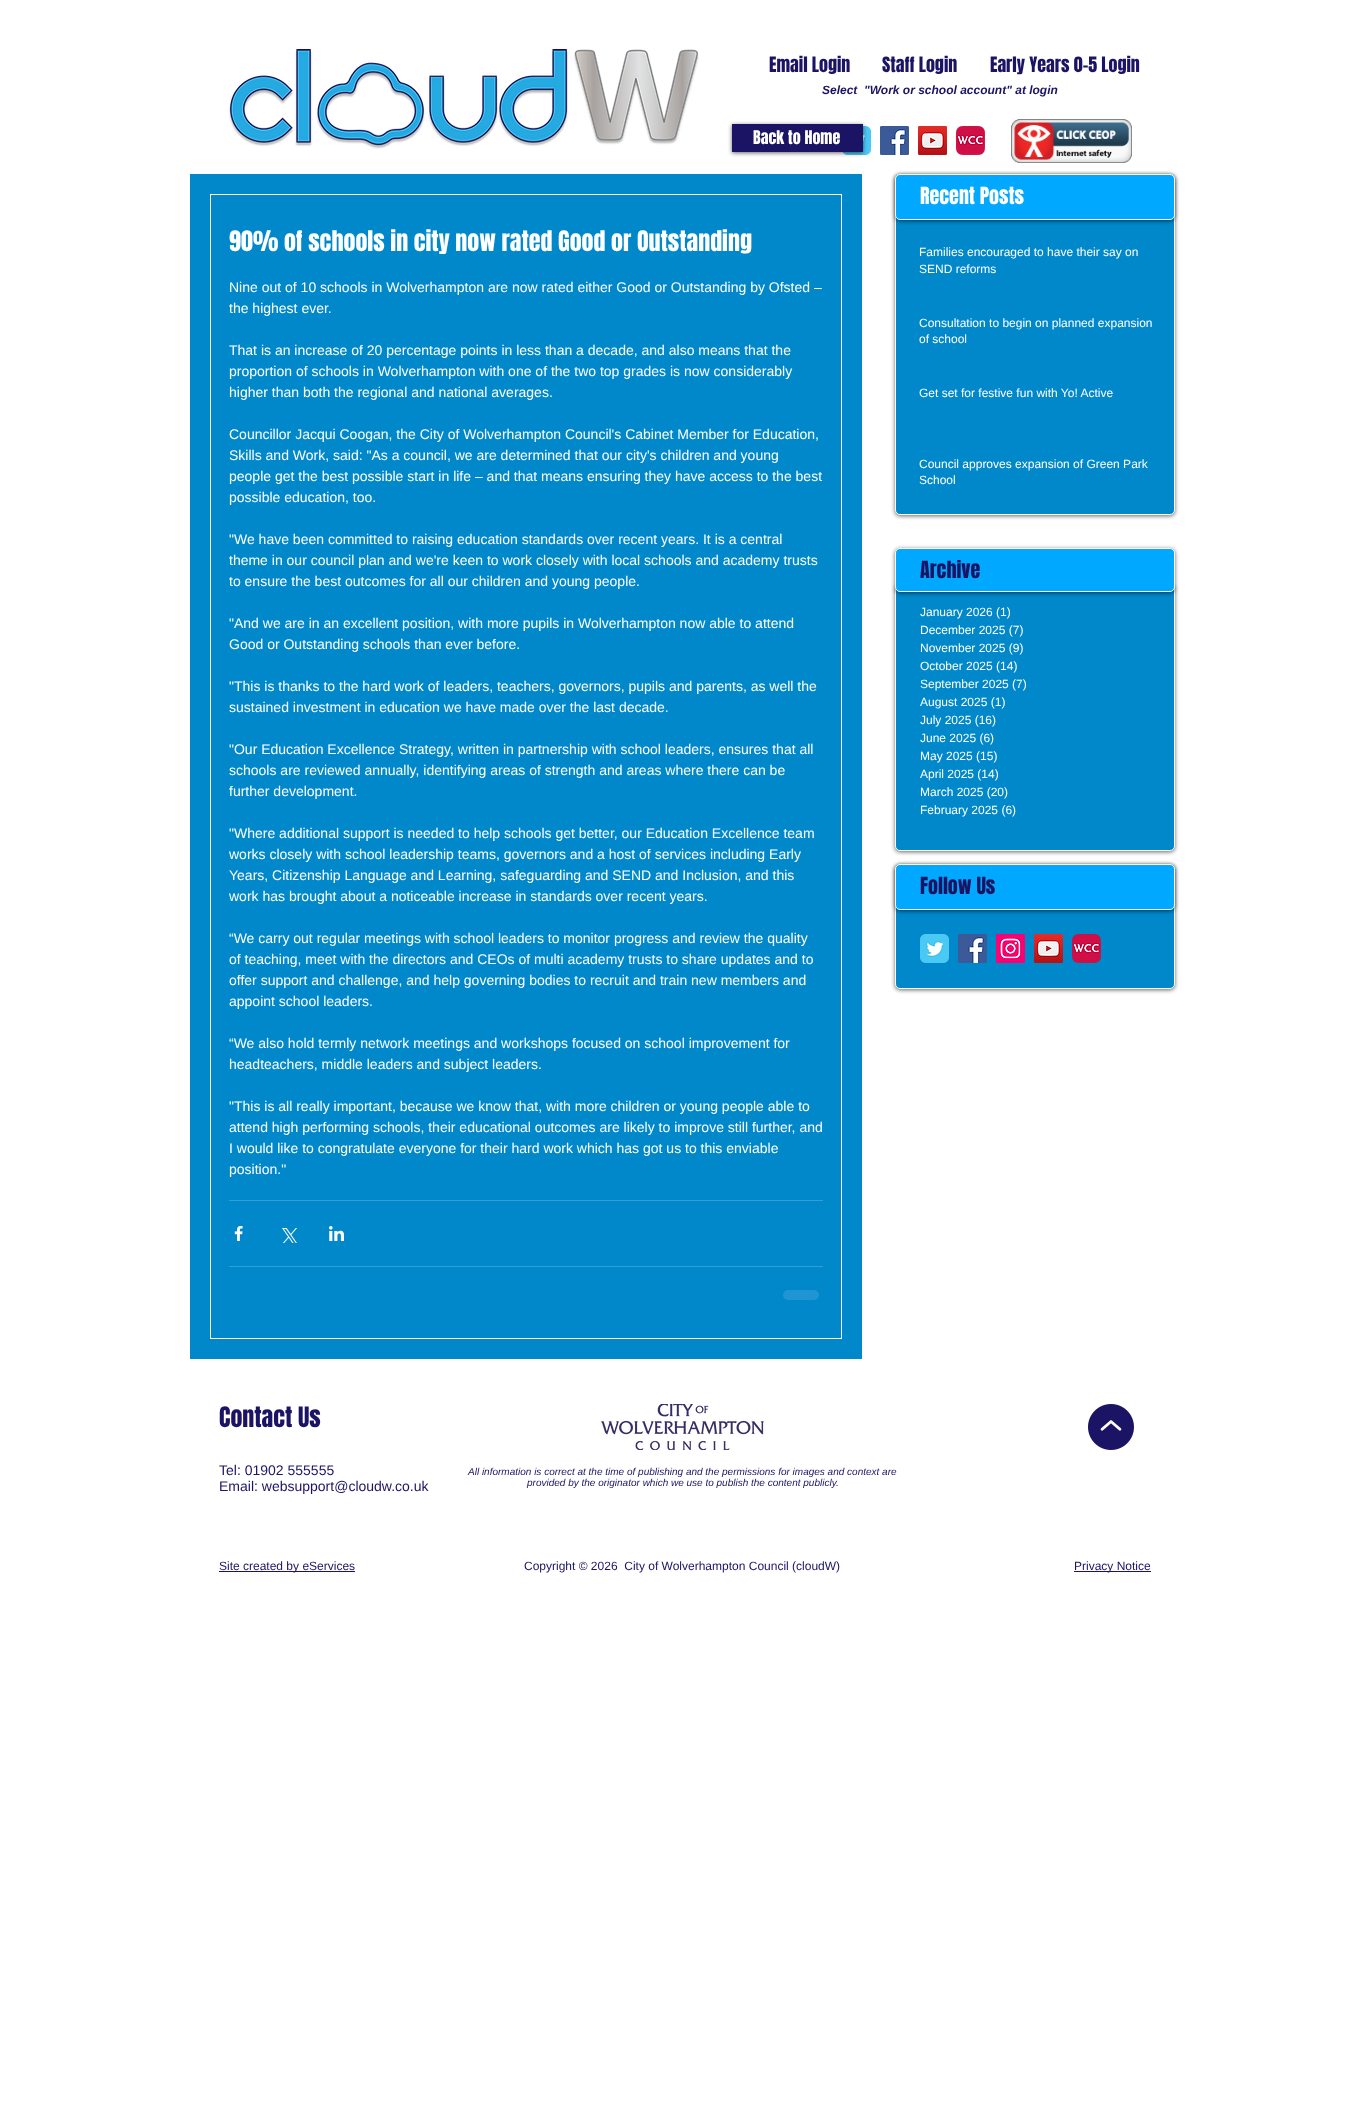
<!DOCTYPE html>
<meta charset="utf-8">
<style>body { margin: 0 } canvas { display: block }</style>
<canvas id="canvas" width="1369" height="2117"></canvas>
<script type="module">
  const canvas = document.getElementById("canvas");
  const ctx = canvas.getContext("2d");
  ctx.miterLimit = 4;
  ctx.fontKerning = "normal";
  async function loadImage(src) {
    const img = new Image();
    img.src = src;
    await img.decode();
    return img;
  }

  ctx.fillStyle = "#ffffff";
  ctx.fillRect(0, 0, 1369, 2117);
  ctx.drawImage(await loadImage("img1.png"), 228, 49, 471, 100);
  ctx.font = "18px Anton";
  ctx.fillStyle = "#1b1464";
  ctx.fillText("Email Login", 769, 72);
  ctx.fillText("Staff Login", 882, 72);
  ctx.fillText("Early Years 0-5 Login", 990, 72);
  ctx.font = "italic bold 12px Liberation Sans";
  ctx.fillText("Select  \"Work or school account\" at login", 822, 94);
  ctx.drawImage(await loadImage("img2.png"), 842, 126, 29, 29);
  ctx.drawImage(await loadImage("img3.png"), 880, 126, 29, 29);
  ctx.drawImage(await loadImage("img4.png"), 918, 126, 29, 29);
  ctx.drawImage(await loadImage("img5.png"), 956, 126, 29, 29);
  ctx.drawImage(await loadImage("img6.png"), 1011, 119, 121, 44);
  ctx.fillStyle = "rgba(0, 0, 0, 0.6)";
  ctx.filter = "blur(2px)";
  ctx.beginPath();
  ctx.rect(732, 125, 131, 28);
  ctx.fill();
  ctx.filter = "none";
  ctx.fillStyle = "#1b1464";
  ctx.fillRect(732, 124, 131, 28);
  ctx.font = "16px Anton";
  ctx.fillStyle = "#ffffff";
  ctx.fillText("Back to Home", 753, 144);
  ctx.fillStyle = "#0088cb";
  ctx.fillRect(190, 174, 672, 1185);
  ctx.strokeStyle = "#ffffff";
  ctx.strokeRect(210.5, 194.5, 631, 1144);
  ctx.font = "24px Anton";
  ctx.fillStyle = "#ffffff";
  ctx.fillText("90% of schools in city now rated Good or Outstanding", 229, 251);
  ctx.font = "14px Liberation Sans";
  ctx.fillText("Nine out of 10 schools in Wolverhampton are now rated either Good or Outstanding by Ofsted –", 229, 292);
  ctx.fillText("the highest ever.", 229, 313);
  ctx.fillText("That is an increase of 20 percentage points in less than a decade, and also means that the", 229, 355);
  ctx.fillText("proportion of schools in Wolverhampton with one of the two top grades is now considerably", 229, 376);
  ctx.fillText("higher than both the regional and national averages.", 229, 397);
  ctx.fillText("Councillor Jacqui Coogan, the City of Wolverhampton Council's Cabinet Member for Education,", 229, 439);
  ctx.fillText("Skills and Work, said: \"As a council, we are determined that our city's children and young", 229, 460);
  ctx.fillText("people get the best possible start in life – and that means ensuring they have access to the best", 229, 481);
  ctx.fillText("possible education, too.", 229, 502);
  ctx.fillText("\"We have been committed to raising education standards over recent years. It is a central", 229, 544);
  ctx.fillText("theme in our council plan and we're keen to work closely with local schools and academy trusts", 229, 565);
  ctx.fillText("to ensure the best outcomes for all our children and young people.", 229, 586);
  ctx.fillText("\"And we are in an excellent position, with more pupils in Wolverhampton now able to attend", 229, 628);
  ctx.fillText("Good or Outstanding schools than ever before.", 229, 649);
  ctx.fillText("\"This is thanks to the hard work of leaders, teachers, governors, pupils and parents, as well the", 229, 691);
  ctx.fillText("sustained investment in education we have made over the last decade.", 229, 712);
  ctx.fillText("\"Our Education Excellence Strategy, written in partnership with school leaders, ensures that all", 229, 754);
  ctx.fillText("schools are reviewed annually, identifying areas of strength and areas where there can be", 229, 775);
  ctx.fillText("further development.", 229, 796);
  ctx.fillText("\"Where additional support is needed to help schools get better, our Education Excellence team", 229, 838);
  ctx.fillText("works closely with school leadership teams, governors and a host of services including Early", 229, 859);
  ctx.fillText("Years, Citizenship Language and Learning, safeguarding and SEND and Inclusion, and this", 229, 880);
  ctx.fillText("work has brought about a noticeable increase in standards over recent years.", 229, 901);
  ctx.fillText("“We carry out regular meetings with school leaders to monitor progress and review the quality", 229, 943);
  ctx.fillText("of teaching, meet with the directors and CEOs of multi academy trusts to share updates and to", 229, 964);
  ctx.fillText("offer support and challenge, and help governing bodies to recruit and train new members and", 229, 985);
  ctx.fillText("appoint school leaders.", 229, 1006);
  ctx.fillText("“We also hold termly network meetings and workshops focused on school improvement for", 229, 1048);
  ctx.fillText("headteachers, middle leaders and subject leaders.", 229, 1069);
  ctx.fillText("\"This is all really important, because we know that, with more children or young people able to", 229, 1111);
  ctx.fillText("attend high performing schools, their educational outcomes are likely to improve still further, and", 229, 1132);
  ctx.fillText("I would like to congratulate everyone for their hard work which has got us to this enviable", 229, 1153);
  ctx.fillText("position.\"", 229, 1174);
  ctx.fillStyle = "#33a0d5";
  ctx.fillRect(229, 1200, 594, 1);
  ctx.drawImage(await loadImage("img7.png"), 234, 1226, 9, 15);
  ctx.drawImage(await loadImage("img8.png"), 282, 1228, 15, 15);
  ctx.drawImage(await loadImage("img9.png"), 329, 1226, 15, 15);
  ctx.fillRect(229, 1266, 594, 1);
  ctx.fillStyle = "#1f96d1";
  ctx.beginPath();
  ctx.roundRect(783, 1290, 36, 10, 5);
  ctx.fill();
  ctx.fillStyle = "rgba(0, 0, 0, 0.6)";
  ctx.filter = "blur(2px)";
  ctx.beginPath();
  ctx.roundRect(895, 175, 280, 341, 5);
  ctx.fill();
  ctx.filter = "none";
  ctx.fillStyle = "#0088cb";
  ctx.beginPath();
  ctx.roundRect(895.5, 174.5, 279, 340, 4.5);
  ctx.fill();
  ctx.stroke();
  ctx.fillStyle = "rgba(0, 0, 0, 0.6)";
  ctx.filter = "blur(2px)";
  ctx.beginPath();
  ctx.roundRect(895, 175, 280, 46, 5);
  ctx.fill();
  ctx.filter = "none";
  ctx.fillStyle = "#00a9ff";
  ctx.beginPath();
  ctx.roundRect(895.5, 174.5, 279, 45, 4.5);
  ctx.fill();
  ctx.stroke();
  ctx.font = "20px Anton";
  ctx.fillStyle = "#ffffff";
  ctx.fillText("Recent Posts", 920, 204);
  ctx.font = "12px Liberation Sans";
  ctx.fillText("Families encouraged to have their say on", 919, 256);
  ctx.fillText("SEND reforms", 919, 273);
  ctx.fillText("Consultation to begin on planned expansion", 919, 327);
  ctx.fillText("of school", 919, 343);
  ctx.fillText("Get set for festive fun with Yo! Active", 919, 397);
  ctx.fillText("Council approves expansion of Green Park", 919, 468);
  ctx.fillText("School", 919, 484);
  ctx.fillStyle = "rgba(0, 0, 0, 0.6)";
  ctx.filter = "blur(2px)";
  ctx.beginPath();
  ctx.roundRect(895, 585, 280, 267, 5);
  ctx.fill();
  ctx.filter = "none";
  ctx.fillStyle = "#0088cb";
  ctx.beginPath();
  ctx.roundRect(895.5, 584.5, 279, 266, 4.5);
  ctx.fill();
  ctx.stroke();
  ctx.fillStyle = "rgba(0, 0, 0, 0.6)";
  ctx.filter = "blur(2px)";
  ctx.beginPath();
  ctx.roundRect(895, 549, 280, 44, 5);
  ctx.fill();
  ctx.filter = "none";
  ctx.fillStyle = "#00a9ff";
  ctx.beginPath();
  ctx.roundRect(895.5, 548.5, 279, 43, 4.5);
  ctx.fill();
  ctx.stroke();
  ctx.font = "20px Anton";
  ctx.fillStyle = "#1b1464";
  ctx.fillText("Archive", 920, 578);
  ctx.font = "12px Liberation Sans";
  ctx.fillStyle = "#ffffff";
  ctx.fillText("January 2026 (1)", 920, 616);
  ctx.fillText("December 2025 (7)", 920, 634);
  ctx.fillText("November 2025 (9)", 920, 652);
  ctx.fillText("October 2025 (14)", 920, 670);
  ctx.fillText("September 2025 (7)", 920, 688);
  ctx.fillText("August 2025 (1)", 920, 706);
  ctx.fillText("July 2025 (16)", 920, 724);
  ctx.fillText("June 2025 (6)", 920, 742);
  ctx.fillText("May 2025 (15)", 920, 760);
  ctx.fillText("April 2025 (14)", 920, 778);
  ctx.fillText("March 2025 (20)", 920, 796);
  ctx.fillText("February 2025 (6)", 920, 814);
  ctx.fillStyle = "rgba(0, 0, 0, 0.6)";
  ctx.filter = "blur(2px)";
  ctx.beginPath();
  ctx.roundRect(895, 865, 280, 125, 5);
  ctx.fill();
  ctx.filter = "none";
  ctx.fillStyle = "#0088cb";
  ctx.beginPath();
  ctx.roundRect(895.5, 864.5, 279, 124, 4.5);
  ctx.fill();
  ctx.stroke();
  ctx.fillStyle = "rgba(0, 0, 0, 0.6)";
  ctx.filter = "blur(2px)";
  ctx.beginPath();
  ctx.roundRect(895, 865, 280, 46, 5);
  ctx.fill();
  ctx.filter = "none";
  ctx.fillStyle = "#00a9ff";
  ctx.beginPath();
  ctx.roundRect(895.5, 864.5, 279, 45, 4.5);
  ctx.fill();
  ctx.stroke();
  ctx.font = "20px Anton";
  ctx.fillStyle = "#1b1464";
  ctx.fillText("Follow Us", 920, 894);
  ctx.drawImage(await loadImage("img10.png"), 920, 934, 29, 29);
  ctx.drawImage(await loadImage("img11.png"), 958, 934, 29, 29);
  ctx.drawImage(await loadImage("img12.png"), 996, 934, 29, 29);
  ctx.drawImage(await loadImage("img13.png"), 1034, 934, 29, 29);
  ctx.drawImage(await loadImage("img14.png"), 1072, 934, 29, 29);
  ctx.font = "24px Anton";
  ctx.fillText("Contact Us", 219, 1427);
  ctx.font = "14px Liberation Sans";
  ctx.fillText("Tel: 01902 555555", 219, 1475);
  ctx.fillText("Email: websupport@cloudw.co.uk", 219, 1491);
  ctx.drawImage(await loadImage("img15.png"), 601, 1404, 163, 46);
  ctx.drawImage(await loadImage("img16.png"), 1088, 1404, 46, 46);
  ctx.font = "italic 10px Liberation Sans";
  ctx.fillText("All information is correct at the time of publishing and the permissions for images and context are", 468, 1475);
  ctx.fillText("provided by the originator which we use to publish the content publicly.", 527, 1486);
  ctx.fillRect(219, 1571, 136, 1);
  ctx.font = "12px Liberation Sans";
  ctx.fillText("Site created by eServices", 219, 1570);
  ctx.fillText("Copyright © 2026  City of Wolverhampton Council (cloudW)", 524, 1570);
  ctx.fillRect(1074, 1571, 77, 1);
  ctx.fillText("Privacy Notice", 1074, 1570);
</script>
